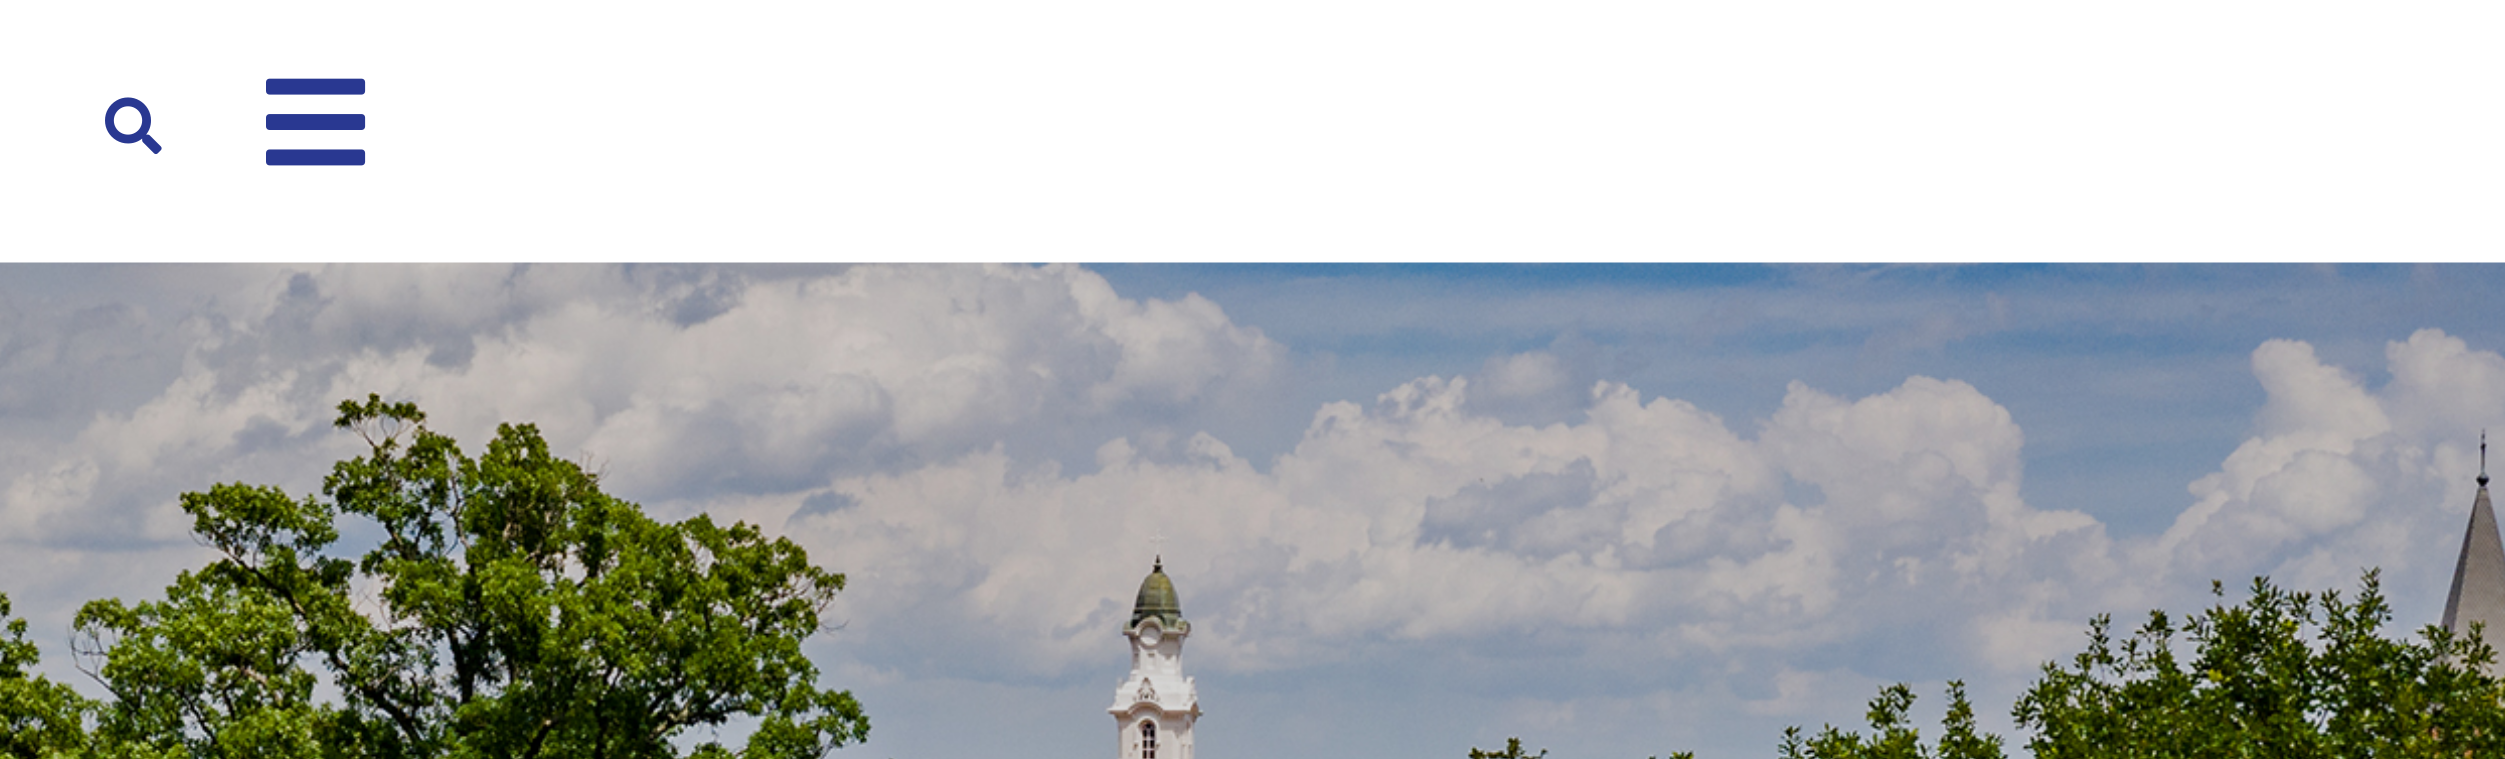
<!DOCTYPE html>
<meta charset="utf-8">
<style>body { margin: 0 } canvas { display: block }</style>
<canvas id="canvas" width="2505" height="759"></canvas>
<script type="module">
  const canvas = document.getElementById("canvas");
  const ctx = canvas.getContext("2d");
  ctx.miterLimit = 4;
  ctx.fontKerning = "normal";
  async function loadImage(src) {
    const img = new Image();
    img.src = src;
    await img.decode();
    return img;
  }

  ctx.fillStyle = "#ffffff";
  ctx.fillRect(0, 0, 2505, 759);
  ctx.drawImage(await loadImage("img1.png"), 105, 97, 57, 58);
  ctx.drawImage(await loadImage("img2.png"), 266, 78, 100, 88);
  ctx.drawImage(await loadImage("img3.png"), 0, 262, 2505, 497);
</script>
